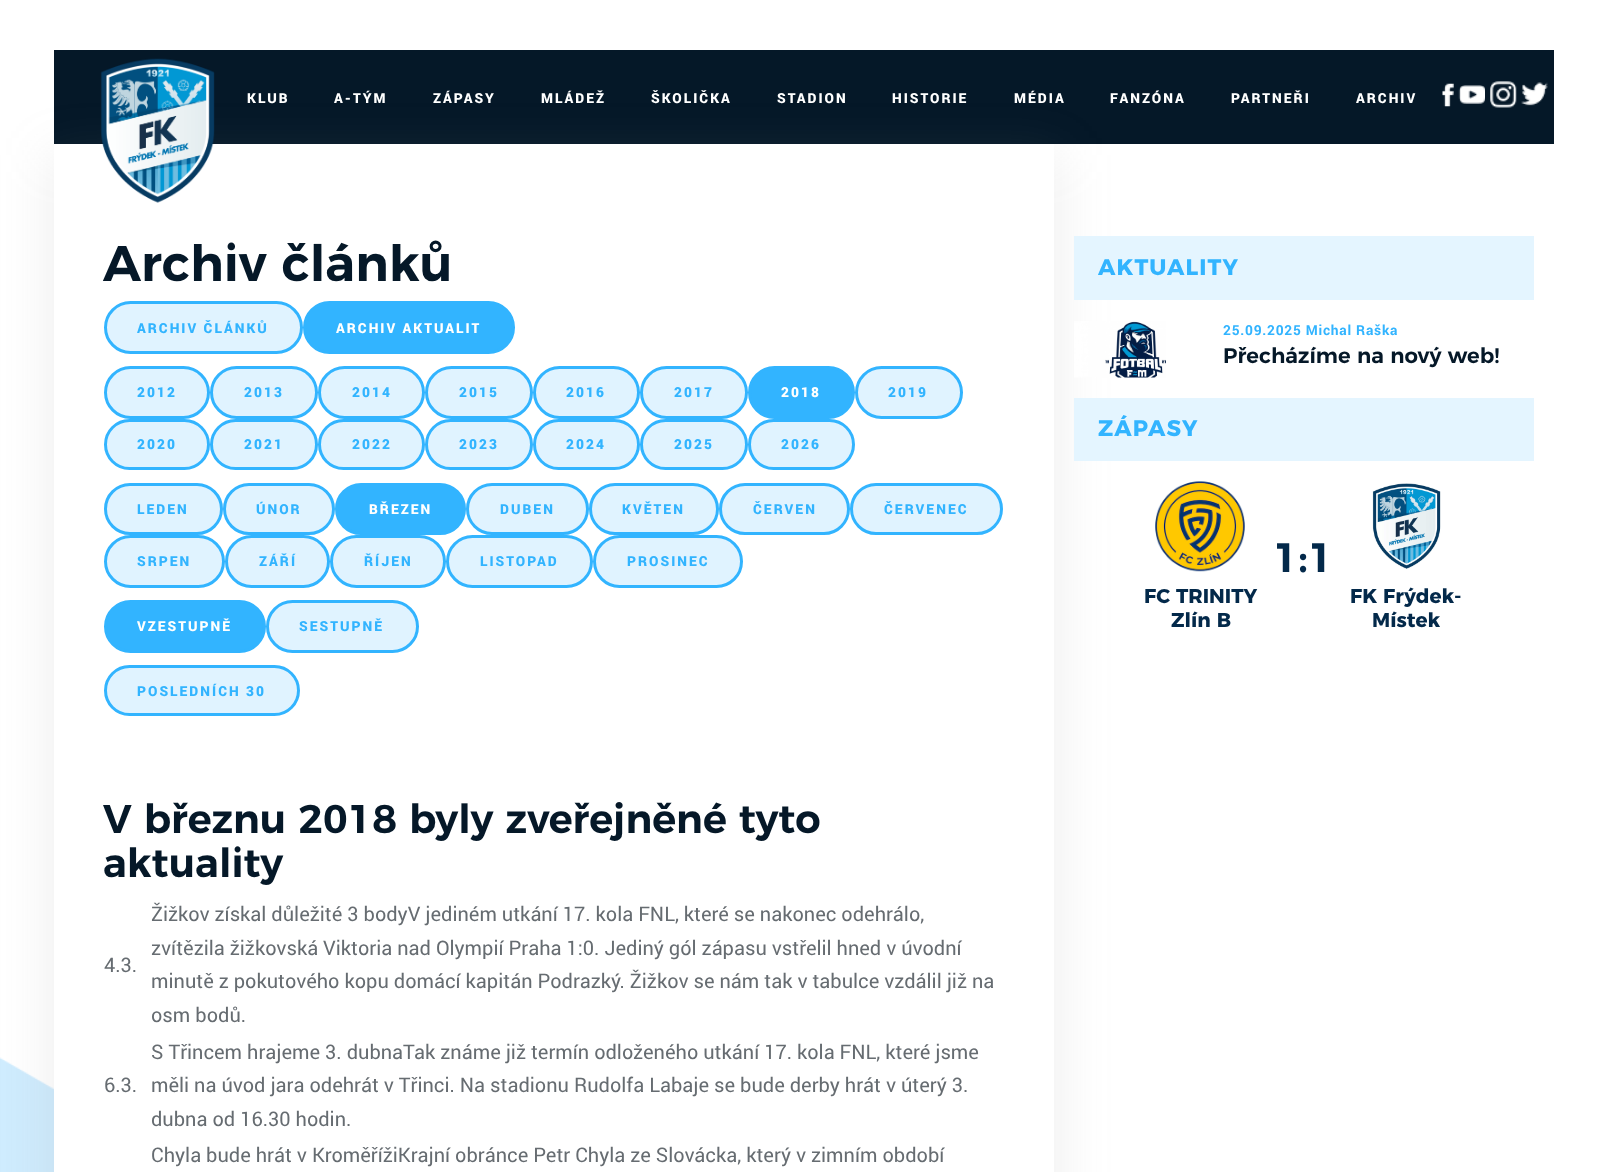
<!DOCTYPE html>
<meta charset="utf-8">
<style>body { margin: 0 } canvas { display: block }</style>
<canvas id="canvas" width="1606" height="1172"></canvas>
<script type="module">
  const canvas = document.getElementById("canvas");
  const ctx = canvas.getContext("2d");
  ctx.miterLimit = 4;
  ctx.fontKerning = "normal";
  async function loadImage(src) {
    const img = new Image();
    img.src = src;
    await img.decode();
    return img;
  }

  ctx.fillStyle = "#ffffff";
  ctx.fillRect(0, 0, 1606, 1172);
  ctx.drawImage(await loadImage("img1.png"), 0, 1057, 54, 115);
  ctx.fillStyle = "#051828";
  ctx.fillRect(54, 50, 1500, 94);
  ctx.fillStyle = "rgba(147, 147, 147, 0.15)";
  ctx.filter = "blur(26px)";
  ctx.beginPath();
  ctx.rect(49, 155, 1010, 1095);
  ctx.fill();
  ctx.filter = "none";
  ctx.fillStyle = "#ffffff";
  ctx.fillRect(54, 144, 1000, 1028);
  ctx.drawImage(await loadImage("img2.png"), 100, 58, 115, 145);
  ctx.letterSpacing = "2px";
  ctx.font = "900 13.75px Roboto";
  ctx.fillText("KLUB", 247, 103);
  ctx.fillText("A-TÝM", 334, 103);
  ctx.fillText("ZÁPASY", 433, 103);
  ctx.fillText("MLÁDEŽ", 541, 103);
  ctx.fillText("ŠKOLIČKA", 651, 103);
  ctx.fillText("STADION", 777, 103);
  ctx.fillText("HISTORIE", 892, 103);
  ctx.fillText("MÉDIA", 1014, 103);
  ctx.fillText("FANZÓNA", 1110, 103);
  ctx.fillText("PARTNEŘI", 1231, 103);
  ctx.fillText("ARCHIV", 1356, 103);
  ctx.drawImage(await loadImage("img3.png"), 1442, 83, 12, 24);
  ctx.drawImage(await loadImage("img4.png"), 1458, 85, 27, 19);
  ctx.drawImage(await loadImage("img5.png"), 1490, 81, 27, 27);
  ctx.drawImage(await loadImage("img6.png"), 1521, 82, 27, 24);
  ctx.letterSpacing = "0px";
  ctx.font = "600 50px Montserrat";
  ctx.fillStyle = "#051828";
  ctx.fillText("Archiv článků", 103, 281);
  ctx.fillStyle = "#e0f3ff";
  ctx.beginPath();
  ctx.roundRect(105.5, 302.5, 196, 50, 25);
  ctx.fill();
  ctx.strokeStyle = "#32b4ff";
  ctx.lineWidth = 3;
  ctx.stroke();
  ctx.letterSpacing = "2px";
  ctx.font = "900 13.75px Roboto";
  ctx.fillStyle = "#32b4ff";
  ctx.fillText("ARCHIV ČLÁNKŮ", 137, 333);
  ctx.beginPath();
  ctx.roundRect(304.5, 302.5, 209, 50, 25);
  ctx.fill();
  ctx.stroke();
  ctx.fillStyle = "#ffffff";
  ctx.fillText("ARCHIV AKTUALIT", 336, 333);
  ctx.fillStyle = "#e0f3ff";
  ctx.beginPath();
  ctx.roundRect(105.5, 367.5, 103, 50, 25);
  ctx.fill();
  ctx.stroke();
  ctx.fillStyle = "#32b4ff";
  ctx.fillText("2012", 137, 397);
  ctx.fillStyle = "#e0f3ff";
  ctx.beginPath();
  ctx.roundRect(211.5, 367.5, 105, 50, 25);
  ctx.fill();
  ctx.stroke();
  ctx.fillStyle = "#32b4ff";
  ctx.fillText("2013", 244, 397);
  ctx.fillStyle = "#e0f3ff";
  ctx.beginPath();
  ctx.roundRect(319.5, 367.5, 104, 50, 25);
  ctx.fill();
  ctx.stroke();
  ctx.fillStyle = "#32b4ff";
  ctx.fillText("2014", 352, 397);
  ctx.fillStyle = "#e0f3ff";
  ctx.beginPath();
  ctx.roundRect(426.5, 367.5, 105, 50, 25);
  ctx.fill();
  ctx.stroke();
  ctx.fillStyle = "#32b4ff";
  ctx.fillText("2015", 459, 397);
  ctx.fillStyle = "#e0f3ff";
  ctx.beginPath();
  ctx.roundRect(534.5, 367.5, 104, 50, 25);
  ctx.fill();
  ctx.stroke();
  ctx.fillStyle = "#32b4ff";
  ctx.fillText("2016", 566, 397);
  ctx.fillStyle = "#e0f3ff";
  ctx.beginPath();
  ctx.roundRect(641.5, 367.5, 105, 50, 25);
  ctx.fill();
  ctx.stroke();
  ctx.fillStyle = "#32b4ff";
  ctx.fillText("2017", 674, 397);
  ctx.beginPath();
  ctx.roundRect(749.5, 367.5, 104, 50, 25);
  ctx.fill();
  ctx.stroke();
  ctx.fillStyle = "#ffffff";
  ctx.fillText("2018", 781, 397);
  ctx.fillStyle = "#e0f3ff";
  ctx.beginPath();
  ctx.roundRect(856.5, 367.5, 105, 50, 25);
  ctx.fill();
  ctx.stroke();
  ctx.fillStyle = "#32b4ff";
  ctx.fillText("2019", 888, 397);
  ctx.fillStyle = "#e0f3ff";
  ctx.beginPath();
  ctx.roundRect(105.5, 420.5, 103, 48, 24);
  ctx.fill();
  ctx.stroke();
  ctx.fillStyle = "#32b4ff";
  ctx.fillText("2020", 137, 449);
  ctx.fillStyle = "#e0f3ff";
  ctx.beginPath();
  ctx.roundRect(211.5, 420.5, 105, 48, 24);
  ctx.fill();
  ctx.stroke();
  ctx.fillStyle = "#32b4ff";
  ctx.fillText("2021", 244, 449);
  ctx.fillStyle = "#e0f3ff";
  ctx.beginPath();
  ctx.roundRect(319.5, 420.5, 104, 48, 24);
  ctx.fill();
  ctx.stroke();
  ctx.fillStyle = "#32b4ff";
  ctx.fillText("2022", 352, 449);
  ctx.fillStyle = "#e0f3ff";
  ctx.beginPath();
  ctx.roundRect(426.5, 420.5, 105, 48, 24);
  ctx.fill();
  ctx.stroke();
  ctx.fillStyle = "#32b4ff";
  ctx.fillText("2023", 459, 449);
  ctx.fillStyle = "#e0f3ff";
  ctx.beginPath();
  ctx.roundRect(534.5, 420.5, 104, 48, 24);
  ctx.fill();
  ctx.stroke();
  ctx.fillStyle = "#32b4ff";
  ctx.fillText("2024", 566, 449);
  ctx.fillStyle = "#e0f3ff";
  ctx.beginPath();
  ctx.roundRect(641.5, 420.5, 105, 48, 24);
  ctx.fill();
  ctx.stroke();
  ctx.fillStyle = "#32b4ff";
  ctx.fillText("2025", 674, 449);
  ctx.fillStyle = "#e0f3ff";
  ctx.beginPath();
  ctx.roundRect(749.5, 420.5, 104, 48, 24);
  ctx.fill();
  ctx.stroke();
  ctx.fillStyle = "#32b4ff";
  ctx.fillText("2026", 781, 449);
  ctx.fillStyle = "#e0f3ff";
  ctx.beginPath();
  ctx.roundRect(105.5, 484.5, 116, 49, 24.5);
  ctx.fill();
  ctx.stroke();
  ctx.fillStyle = "#32b4ff";
  ctx.fillText("LEDEN", 137, 514);
  ctx.fillStyle = "#e0f3ff";
  ctx.beginPath();
  ctx.roundRect(224.5, 484.5, 109, 49, 24.5);
  ctx.fill();
  ctx.stroke();
  ctx.fillStyle = "#32b4ff";
  ctx.fillText("ÚNOR", 256, 514);
  ctx.beginPath();
  ctx.roundRect(336.5, 484.5, 128, 49, 24.5);
  ctx.fill();
  ctx.stroke();
  ctx.fillStyle = "#ffffff";
  ctx.fillText("BŘEZEN", 369, 514);
  ctx.fillStyle = "#e0f3ff";
  ctx.beginPath();
  ctx.roundRect(467.5, 484.5, 120, 49, 24.5);
  ctx.fill();
  ctx.stroke();
  ctx.fillStyle = "#32b4ff";
  ctx.fillText("DUBEN", 500, 514);
  ctx.fillStyle = "#e0f3ff";
  ctx.beginPath();
  ctx.roundRect(590.5, 484.5, 127, 49, 24.5);
  ctx.fill();
  ctx.stroke();
  ctx.fillStyle = "#32b4ff";
  ctx.fillText("KVĚTEN", 622, 514);
  ctx.fillStyle = "#e0f3ff";
  ctx.beginPath();
  ctx.roundRect(720.5, 484.5, 128, 49, 24.5);
  ctx.fill();
  ctx.stroke();
  ctx.fillStyle = "#32b4ff";
  ctx.fillText("ČERVEN", 753, 514);
  ctx.fillStyle = "#e0f3ff";
  ctx.beginPath();
  ctx.roundRect(851.5, 484.5, 150, 49, 24.5);
  ctx.fill();
  ctx.stroke();
  ctx.fillStyle = "#32b4ff";
  ctx.fillText("ČERVENEC", 884, 514);
  ctx.fillStyle = "#e0f3ff";
  ctx.beginPath();
  ctx.roundRect(105.5, 536.5, 118, 50, 25);
  ctx.fill();
  ctx.stroke();
  ctx.fillStyle = "#32b4ff";
  ctx.fillText("SRPEN", 137, 566);
  ctx.fillStyle = "#e0f3ff";
  ctx.beginPath();
  ctx.roundRect(226.5, 536.5, 102, 50, 25);
  ctx.fill();
  ctx.stroke();
  ctx.fillStyle = "#32b4ff";
  ctx.fillText("ZÁŘÍ", 259, 566);
  ctx.fillStyle = "#e0f3ff";
  ctx.beginPath();
  ctx.roundRect(331.5, 536.5, 113, 50, 25);
  ctx.fill();
  ctx.stroke();
  ctx.fillStyle = "#32b4ff";
  ctx.fillText("ŘÍJEN", 364, 566);
  ctx.fillStyle = "#e0f3ff";
  ctx.beginPath();
  ctx.roundRect(447.5, 536.5, 144, 50, 25);
  ctx.fill();
  ctx.stroke();
  ctx.fillStyle = "#32b4ff";
  ctx.fillText("LISTOPAD", 480, 566);
  ctx.fillStyle = "#e0f3ff";
  ctx.beginPath();
  ctx.roundRect(594.5, 536.5, 147, 50, 25);
  ctx.fill();
  ctx.stroke();
  ctx.fillStyle = "#32b4ff";
  ctx.fillText("PROSINEC", 627, 566);
  ctx.beginPath();
  ctx.roundRect(105.5, 601.5, 159, 50, 25);
  ctx.fill();
  ctx.stroke();
  ctx.fillStyle = "#ffffff";
  ctx.fillText("VZESTUPNĚ", 137, 631);
  ctx.fillStyle = "#e0f3ff";
  ctx.beginPath();
  ctx.roundRect(267.5, 601.5, 150, 50, 25);
  ctx.fill();
  ctx.stroke();
  ctx.fillStyle = "#32b4ff";
  ctx.fillText("SESTUPNĚ", 299, 631);
  ctx.fillStyle = "#e0f3ff";
  ctx.beginPath();
  ctx.roundRect(105.5, 666.5, 193, 48, 24);
  ctx.fill();
  ctx.stroke();
  ctx.fillStyle = "#32b4ff";
  ctx.fillText("POSLEDNÍCH 30", 137, 696);
  ctx.letterSpacing = "0px";
  ctx.font = "600 40px Montserrat";
  ctx.fillStyle = "#051828";
  ctx.fillText("V březnu 2018 byly zveřejněné tyto", 103, 833);
  ctx.fillText("aktuality", 103, 877);
  ctx.font = "20px Roboto";
  ctx.fillStyle = "#666c71";
  ctx.fillText("4.3.", 104, 972);
  ctx.fillText("Žižkov získal důležité 3 bodyV jediném utkání 17. kola FNL, které se nakonec odehrálo,", 151, 921);
  ctx.fillText("zvítězila žižkovská Viktoria nad Olympií Praha 1:0. Jediný gól zápasu vstřelil hned v úvodní", 151, 955);
  ctx.fillText("minutě z pokutového kopu domácí kapitán Podrazký. Žižkov se nám tak v tabulce vzdálil již na", 151, 988);
  ctx.fillText("osm bodů.", 151, 1022);
  ctx.fillText("6.3.", 104, 1092);
  ctx.fillText("S Třincem hrajeme 3. dubnaTak známe již termín odloženého utkání 17. kola FNL, které jsme", 151, 1059);
  ctx.fillText("měli na úvod jara odehrát v Třinci. Na stadionu Rudolfa Labaje se bude derby hrát v úterý 3.", 151, 1092);
  ctx.fillText("dubna od 16.30 hodin.", 151, 1126);
  ctx.fillText("Chyla bude hrát v KroměřížiKrajní obránce Petr Chyla ze Slovácka, který v zimním období", 151, 1162);
  ctx.fillStyle = "#e4f5ff";
  ctx.fillRect(1074, 236, 460, 64);
  ctx.letterSpacing = "1.1px";
  ctx.font = "bold 22.5px Montserrat";
  ctx.fillStyle = "#32b4ff";
  ctx.fillText("AKTUALITY", 1098, 275);
  ctx.drawImage(await loadImage("img7.png"), 1074, 321, 92, 57);
  ctx.letterSpacing = "0.75px";
  ctx.font = "bold 13.75px Roboto";
  ctx.fillText("25.09.2025 Michal Raška", 1223, 335);
  ctx.letterSpacing = "0px";
  ctx.font = "600 21.25px Montserrat";
  ctx.fillStyle = "#051828";
  ctx.fillText("Přecházíme na nový web!", 1223, 363);
  ctx.fillStyle = "#e4f5ff";
  ctx.fillRect(1074, 398, 460, 63);
  ctx.letterSpacing = "1.1px";
  ctx.font = "bold 22.5px Montserrat";
  ctx.fillStyle = "#32b4ff";
  ctx.fillText("ZÁPASY", 1098, 436);
  ctx.letterSpacing = "0px";
  ctx.font = "600 41px Montserrat";
  ctx.fillStyle = "#03294a";
  ctx.fillText("1:1", 1273, 572);
  ctx.drawImage(await loadImage("img8.png"), 1155, 481, 90, 91);
  ctx.font = "bold 20px Montserrat";
  ctx.fillText("FC TRINITY", 1144, 603);
  ctx.fillText("Zlín B", 1171, 627);
  ctx.drawImage(await loadImage("img9.png"), 1372, 483, 69, 86);
  ctx.fillText("FK Frýdek-", 1350, 603);
  ctx.fillText("Místek", 1372, 627);
</script>
